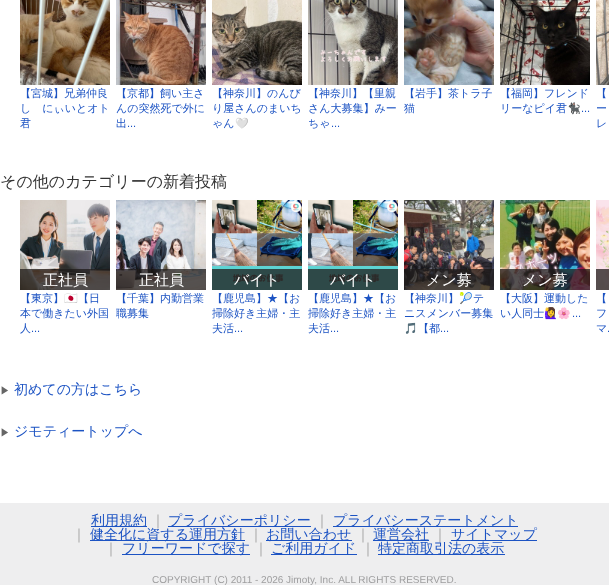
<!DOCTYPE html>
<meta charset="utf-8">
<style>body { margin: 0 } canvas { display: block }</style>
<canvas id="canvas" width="609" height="585"></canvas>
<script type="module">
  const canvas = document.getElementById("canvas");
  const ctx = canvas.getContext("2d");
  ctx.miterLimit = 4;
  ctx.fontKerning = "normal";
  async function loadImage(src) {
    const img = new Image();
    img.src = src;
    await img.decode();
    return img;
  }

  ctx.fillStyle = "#eeeeef";
  ctx.fillRect(0, 0, 609, 585);
  ctx.fillStyle = "#ffffff";
  ctx.fillRect(0, 0, 609, 503);
  ctx.drawImage(await loadImage("img1.png"), 20, 0, 90, 85);
  ctx.font = "500 11px WenQuanYi Zen Hei";
  ctx.fillStyle = "#1c53c3";
  ctx.fillText("【宮城】兄弟仲良", 20, 97);
  ctx.fillText("し　にぃいとオト", 20, 112);
  ctx.fillText("君", 20, 127);
  ctx.drawImage(await loadImage("img2.png"), 116, 0, 90, 85);
  ctx.fillText("【京都】飼い主さ", 116, 97);
  ctx.fillText("んの突然死で外に", 116, 112);
  ctx.fillText("出", 116, 127);
  ctx.font = "11px Liberation Sans";
  ctx.fillText("...", 127, 127);
  ctx.drawImage(await loadImage("img3.png"), 212, 0, 90, 85);
  ctx.font = "500 11px WenQuanYi Zen Hei";
  ctx.fillText("【神奈川】のんび", 212, 97);
  ctx.fillText("り屋さんのまいち", 212, 112);
  ctx.fillText("ゃん", 212, 127);
  ctx.font = "11px Noto Color Emoji";
  ctx.fillText("🤍", 235, 127);
  ctx.drawImage(await loadImage("img4.png"), 308, 0, 90, 85);
  ctx.font = "500 11px WenQuanYi Zen Hei";
  ctx.fillText("【神奈川】【里親", 308, 97);
  ctx.fillText("さん大募集】みー", 308, 112);
  ctx.fillText("ちゃ", 308, 127);
  ctx.font = "11px Liberation Sans";
  ctx.fillText("...", 331, 127);
  ctx.drawImage(await loadImage("img5.png"), 404, 0, 90, 85);
  ctx.font = "500 11px WenQuanYi Zen Hei";
  ctx.fillText("【岩手】茶トラ子", 404, 97);
  ctx.fillText("猫", 404, 112);
  ctx.drawImage(await loadImage("img6.png"), 500, 0, 90, 85);
  ctx.fillText("【福岡】フレンド", 500, 97);
  ctx.fillText("リーなピイ君", 500, 112);
  ctx.font = "11px Noto Color Emoji";
  ctx.fillText("🐈‍⬛", 567, 112);
  ctx.font = "11px Liberation Sans";
  ctx.fillText("...", 581, 112);
  ctx.drawImage(await loadImage("img7.png"), 596, 0, 13, 85);
  ctx.font = "500 11px WenQuanYi Zen Hei";
  ctx.fillText("【", 596, 97);
  ctx.fillText("ー", 596, 112);
  ctx.fillText("レ", 596, 127);
  ctx.font = "500 16px WenQuanYi Zen Hei";
  ctx.fillStyle = "#333333";
  ctx.fillText("その他のカテゴリーの新着投稿", 0, 187);
  ctx.drawImage(await loadImage("img8.png"), 20, 200, 90, 90);
  ctx.fillStyle = "rgba(31, 27, 26, 0.75)";
  ctx.fillRect(20, 269, 90, 21);
  ctx.font = "500 15px WenQuanYi Zen Hei";
  ctx.fillStyle = "#ffffff";
  ctx.fillText("正社員", 43, 285);
  ctx.font = "500 11px WenQuanYi Zen Hei";
  ctx.fillStyle = "#1c53c3";
  ctx.fillText("【東京】", 20, 302);
  ctx.font = "11px Noto Color Emoji";
  ctx.fillText("🇯🇵", 64, 302);
  ctx.font = "500 11px WenQuanYi Zen Hei";
  ctx.fillText("【日", 78, 302);
  ctx.fillText("本で働きたい外国", 20, 317);
  ctx.fillText("人", 20, 332);
  ctx.font = "11px Liberation Sans";
  ctx.fillText("...", 31, 332);
  ctx.drawImage(await loadImage("img9.png"), 116, 200, 90, 90);
  ctx.fillStyle = "rgba(31, 27, 26, 0.75)";
  ctx.fillRect(116, 269, 90, 21);
  ctx.font = "500 15px WenQuanYi Zen Hei";
  ctx.fillStyle = "#ffffff";
  ctx.fillText("正社員", 139, 285);
  ctx.font = "500 11px WenQuanYi Zen Hei";
  ctx.fillStyle = "#1c53c3";
  ctx.fillText("【千葉】内勤営業", 116, 302);
  ctx.fillText("職募集", 116, 317);
  ctx.drawImage(await loadImage("img10.png"), 212, 200, 90, 90);
  ctx.fillStyle = "rgba(31, 27, 26, 0.75)";
  ctx.fillRect(212, 269, 90, 21);
  ctx.font = "500 15px WenQuanYi Zen Hei";
  ctx.fillStyle = "#ffffff";
  ctx.fillText("バイト", 234, 285);
  ctx.font = "500 11px WenQuanYi Zen Hei";
  ctx.fillStyle = "#1c53c3";
  ctx.fillText("【鹿児島】★【お", 212, 302);
  ctx.fillText("掃除好き主婦・主", 212, 317);
  ctx.fillText("夫活", 212, 332);
  ctx.font = "11px Liberation Sans";
  ctx.fillText("...", 234, 332);
  ctx.drawImage(await loadImage("img11.png"), 308, 200, 90, 90);
  ctx.fillStyle = "rgba(31, 27, 26, 0.75)";
  ctx.fillRect(308, 269, 90, 21);
  ctx.font = "500 15px WenQuanYi Zen Hei";
  ctx.fillStyle = "#ffffff";
  ctx.fillText("バイト", 330, 285);
  ctx.font = "500 11px WenQuanYi Zen Hei";
  ctx.fillStyle = "#1c53c3";
  ctx.fillText("【鹿児島】★【お", 308, 302);
  ctx.fillText("掃除好き主婦・主", 308, 317);
  ctx.fillText("夫活", 308, 332);
  ctx.font = "11px Liberation Sans";
  ctx.fillText("...", 330, 332);
  ctx.drawImage(await loadImage("img12.png"), 404, 200, 90, 90);
  ctx.fillStyle = "rgba(31, 27, 26, 0.75)";
  ctx.fillRect(404, 269, 90, 21);
  ctx.font = "500 15px WenQuanYi Zen Hei";
  ctx.fillStyle = "#ffffff";
  ctx.fillText("メン募", 426, 285);
  ctx.font = "500 11px WenQuanYi Zen Hei";
  ctx.fillStyle = "#1c53c3";
  ctx.fillText("【神奈川】", 404, 302);
  ctx.font = "11px Noto Color Emoji";
  ctx.fillText("🎾", 459, 302);
  ctx.font = "500 11px WenQuanYi Zen Hei";
  ctx.fillText("テ", 473, 302);
  ctx.fillText("ニスメンバー募集", 404, 317);
  ctx.font = "11px Noto Color Emoji";
  ctx.fillText("🎵", 404, 332);
  ctx.font = "500 11px WenQuanYi Zen Hei";
  ctx.fillText("【都", 418, 332);
  ctx.font = "11px Liberation Sans";
  ctx.fillText("...", 440, 332);
  ctx.drawImage(await loadImage("img13.png"), 500, 200, 90, 90);
  ctx.fillStyle = "rgba(31, 27, 26, 0.75)";
  ctx.fillRect(500, 269, 90, 21);
  ctx.font = "500 15px WenQuanYi Zen Hei";
  ctx.fillStyle = "#ffffff";
  ctx.fillText("メン募", 522, 285);
  ctx.font = "500 11px WenQuanYi Zen Hei";
  ctx.fillStyle = "#1c53c3";
  ctx.fillText("【大阪】運動した", 500, 302);
  ctx.fillText("い人同士", 500, 317);
  ctx.font = "11px Noto Color Emoji";
  ctx.fillText("🙋‍♀️🌸", 544, 317);
  ctx.font = "11px Liberation Sans";
  ctx.fillText("...", 572, 317);
  ctx.drawImage(await loadImage("img14.png"), 596, 200, 13, 90);
  ctx.fillStyle = "rgba(31, 27, 26, 0.75)";
  ctx.fillRect(596, 269, 13, 21);
  ctx.font = "500 11px WenQuanYi Zen Hei";
  ctx.fillStyle = "#1c53c3";
  ctx.fillText("【", 596, 302);
  ctx.fillText("フ", 596, 317);
  ctx.fillText("マ", 596, 332);
  ctx.font = "11px Liberation Sans";
  ctx.fillText(".", 607, 332);
  ctx.font = "500 10px WenQuanYi Zen Hei";
  ctx.fillStyle = "#666666";
  ctx.fillText("▶", 0, 394);
  ctx.font = "500 14px WenQuanYi Zen Hei";
  ctx.fillStyle = "#1c53c3";
  ctx.fillText("初めての方はこちら", 14, 394);
  ctx.font = "500 10px WenQuanYi Zen Hei";
  ctx.fillStyle = "#666666";
  ctx.fillText("▶", 0, 436);
  ctx.font = "500 14px WenQuanYi Zen Hei";
  ctx.fillStyle = "#1c53c3";
  ctx.fillText("ジモティートップへ", 14, 436);
  ctx.fillRect(91, 526, 56, 1);
  ctx.fillText("利用規約", 91, 525);
  ctx.fillStyle = "#9e9e9f";
  ctx.fillText("｜", 151, 525);
  ctx.fillStyle = "#1c53c3";
  ctx.fillRect(168, 526, 143, 1);
  ctx.fillText("プライバシーポリシー", 168, 525);
  ctx.fillStyle = "#9e9e9f";
  ctx.fillText("｜", 315, 525);
  ctx.fillStyle = "#1c53c3";
  ctx.fillRect(333, 526, 185, 1);
  ctx.fillText("プライバシーステートメント", 333, 525);
  ctx.fillStyle = "#9e9e9f";
  ctx.fillText("｜", 72, 539);
  ctx.fillStyle = "#1c53c3";
  ctx.fillRect(90, 540, 155, 1);
  ctx.fillText("健全化に資する運用方針", 90, 539);
  ctx.fillStyle = "#9e9e9f";
  ctx.fillText("｜", 249, 539);
  ctx.fillStyle = "#1c53c3";
  ctx.fillRect(266, 540, 86, 1);
  ctx.fillText("お問い合わせ", 266, 539);
  ctx.fillStyle = "#9e9e9f";
  ctx.fillText("｜", 356, 539);
  ctx.fillStyle = "#1c53c3";
  ctx.fillRect(373, 540, 56, 1);
  ctx.fillText("運営会社", 373, 539);
  ctx.fillStyle = "#9e9e9f";
  ctx.fillText("｜", 433, 539);
  ctx.fillStyle = "#1c53c3";
  ctx.fillRect(451, 540, 86, 1);
  ctx.fillText("サイトマップ", 451, 539);
  ctx.fillStyle = "#9e9e9f";
  ctx.fillText("｜", 104, 553);
  ctx.fillStyle = "#1c53c3";
  ctx.fillRect(122, 554, 128, 1);
  ctx.fillText("フリーワードで探す", 122, 553);
  ctx.fillStyle = "#9e9e9f";
  ctx.fillText("｜", 254, 553);
  ctx.fillStyle = "#1c53c3";
  ctx.fillRect(271, 554, 86, 1);
  ctx.fillText("ご利用ガイド", 271, 553);
  ctx.fillStyle = "#9e9e9f";
  ctx.fillText("｜", 361, 553);
  ctx.fillStyle = "#1c53c3";
  ctx.fillRect(378, 554, 127, 1);
  ctx.fillText("特定商取引法の表示", 378, 553);
  ctx.font = "10px Liberation Sans";
  ctx.fillStyle = "#9e9e9f";
  ctx.fillText("COPYRIGHT (C) 2011 - 2026 Jimoty, Inc. ALL RIGHTS RESERVED.", 152, 583);
</script>
